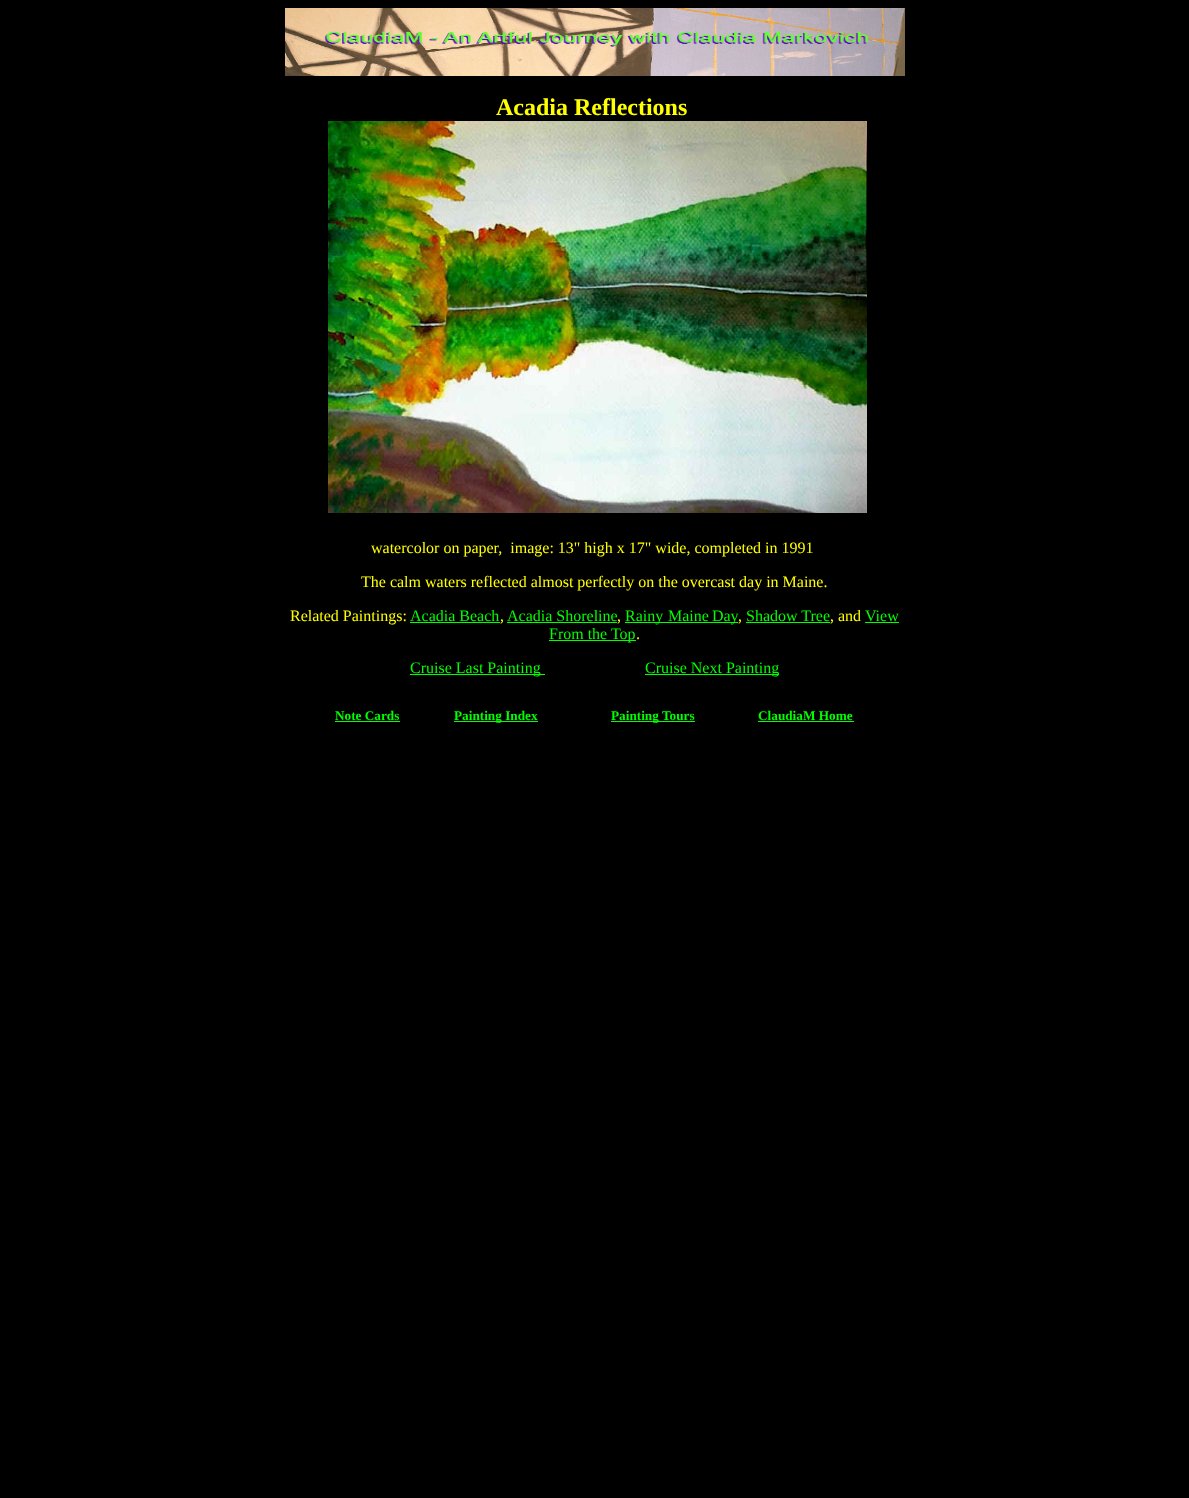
<!DOCTYPE html>
<meta charset="utf-8">
<style>body { margin: 0 } canvas { display: block }</style>
<canvas id="canvas" width="1189" height="1498"></canvas>
<script type="module">
  const canvas = document.getElementById("canvas");
  const ctx = canvas.getContext("2d");
  ctx.miterLimit = 4;
  ctx.fontKerning = "normal";
  async function loadImage(src) {
    const img = new Image();
    img.src = src;
    await img.decode();
    return img;
  }

  ctx.fillStyle = "#000000";
  ctx.fillRect(0, 0, 1189, 1498);
  ctx.drawImage(await loadImage("img1.png"), 285, 8, 620, 68);
  ctx.font = "bold 24px Liberation Serif";
  ctx.fillStyle = "#ffff00";
  ctx.fillText("Acadia Reflections", 496, 115);
  ctx.drawImage(await loadImage("img2.png"), 328, 121, 539, 392);
  ctx.font = "16px Liberation Serif";
  ctx.fillText("watercolor on paper,  image: 13\" high x 17\" wide, completed in 1991", 371, 553);
  ctx.fillText("The calm waters reflected almost perfectly on the overcast day in Maine.", 361, 587);
  ctx.fillText("Related Paintings:", 290, 621);
  ctx.fillStyle = "#00ff00";
  ctx.fillText("Acadia Beach", 410, 621);
  ctx.fillRect(410, 622, 90, 1);
  ctx.fillStyle = "#ffff00";
  ctx.fillText(",", 500, 621);
  ctx.fillStyle = "#00ff00";
  ctx.fillText("Acadia Shoreline", 507, 621);
  ctx.fillRect(507, 622, 110, 1);
  ctx.fillStyle = "#ffff00";
  ctx.fillText(",", 617, 621);
  ctx.fillStyle = "#00ff00";
  ctx.fillRect(625, 622, 113, 1);
  ctx.fillText("Rainy", 625, 621);
  ctx.wordSpacing = "-1px";
  ctx.fillText("Maine Day", 668, 621);
  ctx.wordSpacing = "0px";
  ctx.fillStyle = "#ffff00";
  ctx.fillText(",", 738, 621);
  ctx.fillStyle = "#00ff00";
  ctx.fillText("Shadow Tree", 746, 621);
  ctx.fillRect(746, 622, 84, 1);
  ctx.fillStyle = "#ffff00";
  ctx.fillText(", and", 830, 621);
  ctx.fillStyle = "#00ff00";
  ctx.fillText("View", 865, 621);
  ctx.fillRect(865, 622, 34, 1);
  ctx.fillRect(549, 640, 87, 1);
  ctx.fillText("From the Top", 549, 639);
  ctx.fillStyle = "#ffff00";
  ctx.fillText(".", 636, 639);
  ctx.fillStyle = "#00ff00";
  ctx.fillRect(410, 674, 135, 1);
  ctx.fillText("Cruise Last Painting", 410, 673);
  ctx.fillRect(645, 674, 134, 1);
  ctx.fillText("Cruise Next Painting", 645, 673);
  ctx.font = "bold 13.25px Liberation Serif";
  ctx.fillText("Note Cards", 335, 720);
  ctx.fillRect(335, 721, 65, 1);
  ctx.fillRect(454, 721, 84, 1);
  ctx.fillText("Painting Index", 454, 720);
  ctx.fillRect(611, 721, 84, 1);
  ctx.fillText("Painting Tours", 611, 720);
  ctx.fillText("ClaudiaM Home", 758, 720);
  ctx.fillRect(758, 721, 96, 1);
</script>
